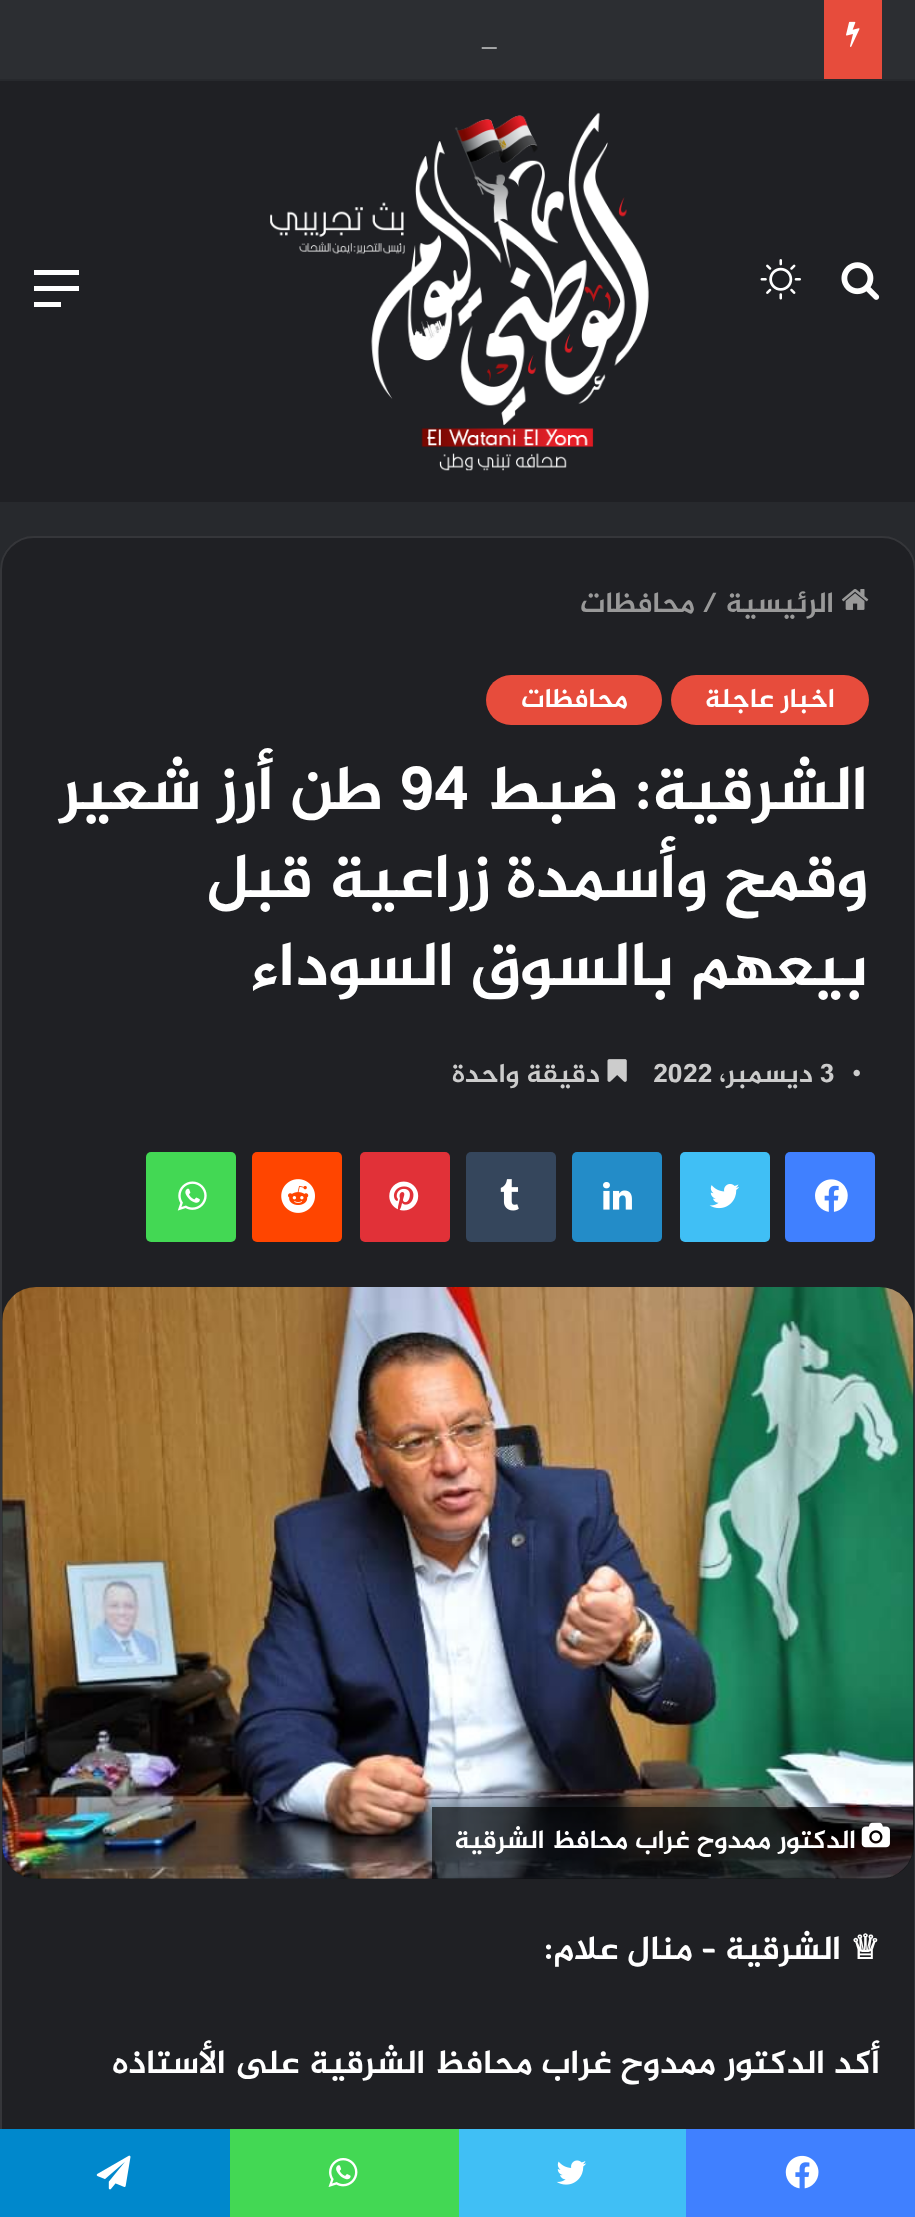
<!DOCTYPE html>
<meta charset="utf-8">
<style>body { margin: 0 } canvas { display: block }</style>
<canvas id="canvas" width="915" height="2217"></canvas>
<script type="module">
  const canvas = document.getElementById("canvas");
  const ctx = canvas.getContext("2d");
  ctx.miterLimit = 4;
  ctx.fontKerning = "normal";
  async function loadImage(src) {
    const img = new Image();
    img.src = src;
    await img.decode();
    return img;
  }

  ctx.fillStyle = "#27292d";
  ctx.fillRect(0, 0, 915, 2217);
  ctx.fillStyle = "#2c2e32";
  ctx.fillRect(0, 0, 915, 79);
  ctx.fillStyle = "#e74c3c";
  ctx.fillRect(824, 0, 58, 79);
  ctx.drawImage(await loadImage("img1.png"), 846, 21, 14, 26);
  ctx.font = "29px Liberation Serif";
  ctx.fillStyle = "#cccccc";
  ctx.fillText("_", 482, 45);
  ctx.fillStyle = "#1f2024";
  ctx.fillRect(0, 81, 915, 421);
  ctx.drawImage(await loadImage("img2.png"), 841, 262, 39, 38);
  ctx.drawImage(await loadImage("img3.png"), 760, 259, 41, 41);
  ctx.drawImage(await loadImage("img4.png"), 270, 112, 379, 359);
  ctx.fillStyle = "#ffffff";
  ctx.fillRect(34, 286, 45, 5);
  ctx.fillRect(34, 270, 45, 5);
  ctx.fillRect(34, 302, 27, 5);
  ctx.fillStyle = "#1f2024";
  ctx.beginPath();
  ctx.roundRect(0, 536, 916, 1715, 34);
  ctx.fill();
  ctx.beginPath();
  ctx.roundRect(1, 537, 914, 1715, 33);
  ctx.strokeStyle = "rgba(255, 255, 255, 0.1)";
  ctx.lineWidth = 2;
  ctx.stroke();
  ctx.drawImage(await loadImage("img5.png"), 842, 589, 27, 21);
  ctx.direction = "rtl";
  ctx.font = "bold 29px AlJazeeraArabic";
  ctx.fillStyle = "#999999";
  ctx.fillText("الرئيسية", 834, 612);
  ctx.direction = "ltr";
  ctx.fillText("/", 702, 612);
  ctx.direction = "rtl";
  ctx.fillText("محافظات", 695, 612);
  ctx.fillStyle = "#e74c3c";
  ctx.beginPath();
  ctx.roundRect(671, 675, 198, 50, 25);
  ctx.fill();
  ctx.font = "bold 27px AlJazeeraArabic";
  ctx.fillStyle = "#ffffff";
  ctx.fillText("اخبار عاجلة", 835, 707);
  ctx.fillStyle = "#e74c3c";
  ctx.beginPath();
  ctx.roundRect(486, 675, 176, 50, 25);
  ctx.fill();
  ctx.fillStyle = "#ffffff";
  ctx.fillText("محافظات", 628, 707);
  ctx.font = "bold 63px AlJazeeraArabic";
  ctx.fillText("الشرقية: ضبط", 868, 809);
  ctx.direction = "ltr";
  ctx.fillText("94", 400, 809);
  ctx.direction = "rtl";
  ctx.fillText("طن أرز شعير", 384, 809);
  ctx.fillText("وقمح وأسمدة زراعية قبل", 868, 897);
  ctx.fillText("بيعهم بالسوق السوداء", 868, 985);
  ctx.direction = "ltr";
  ctx.font = "27px Liberation Serif";
  ctx.fillStyle = "#cccccc";
  ctx.fillText("•", 852, 1082);
  ctx.font = "bold 27px AlJazeeraArabic";
  ctx.fillText("3", 820, 1082);
  ctx.direction = "rtl";
  ctx.fillText("ديسمبر،", 813, 1082);
  ctx.direction = "ltr";
  ctx.fillText("2022", 653, 1082);
  ctx.drawImage(await loadImage("img6.png"), 607, 1059, 20, 23);
  ctx.direction = "rtl";
  ctx.fillText("دقيقة واحدة", 600, 1082);
  ctx.fillStyle = "#4080ff";
  ctx.beginPath();
  ctx.roundRect(785, 1152, 90, 90, 5);
  ctx.fill();
  ctx.drawImage(await loadImage("img7.png"), 815, 1179, 33, 33);
  ctx.fillStyle = "#40bff5";
  ctx.beginPath();
  ctx.roundRect(680, 1152, 90, 90, 5);
  ctx.fill();
  ctx.drawImage(await loadImage("img8.png"), 709, 1184, 30, 25);
  ctx.fillStyle = "#238cc8";
  ctx.beginPath();
  ctx.roundRect(572, 1152, 90, 90, 5);
  ctx.fill();
  ctx.drawImage(await loadImage("img9.png"), 603, 1182, 29, 28);
  ctx.fillStyle = "#35465c";
  ctx.beginPath();
  ctx.roundRect(466, 1152, 90, 90, 5);
  ctx.fill();
  ctx.drawImage(await loadImage("img10.png"), 500, 1179, 19, 32);
  ctx.fillStyle = "#e13138";
  ctx.beginPath();
  ctx.roundRect(360, 1152, 90, 90, 5);
  ctx.fill();
  ctx.drawImage(await loadImage("img11.png"), 389, 1181, 30, 30);
  ctx.fillStyle = "#ff4500";
  ctx.beginPath();
  ctx.roundRect(252, 1152, 90, 90, 5);
  ctx.fill();
  ctx.drawImage(await loadImage("img12.png"), 281, 1179, 34, 34);
  ctx.fillStyle = "#43d854";
  ctx.beginPath();
  ctx.roundRect(146, 1152, 90, 90, 5);
  ctx.fill();
  ctx.drawImage(await loadImage("img13.png"), 177, 1181, 30, 30);
  ctx.drawImage(await loadImage("img14.png"), 2, 1287, 912, 592);
  ctx.fillStyle = "rgba(0, 0, 0, 0.6)";
  ctx.beginPath();
  ctx.roundRect(432, 1807, 482, 72, [0, 0, 34, 0]);
  ctx.fill();
  ctx.drawImage(await loadImage("img15.png"), 861, 1822, 29, 26);
  ctx.font = "bold 26.3px AlJazeeraArabic";
  ctx.fillStyle = "#ffffff";
  ctx.fillText("الدكتور ممدوح غراب محافظ الشرقية", 856, 1848);
  ctx.font = "bold 33.75px DejaVu Sans";
  ctx.fillText("♕", 880, 1959);
  ctx.font = "bold 33.75px AlJazeeraArabic";
  ctx.fillText("الشرقية – منال علام:", 841, 1959);
  ctx.fillText("أكد الدكتور ممدوح غراب محافظ الشرقية على الأستاذه", 880, 2073);
  ctx.fillStyle = "#4080ff";
  ctx.fillRect(686, 2129, 229, 88);
  ctx.drawImage(await loadImage("img16.png"), 785, 2155, 34, 34);
  ctx.fillStyle = "#40bff5";
  ctx.fillRect(459, 2129, 227, 88);
  ctx.drawImage(await loadImage("img17.png"), 556, 2160, 31, 25);
  ctx.fillStyle = "#43d854";
  ctx.fillRect(230, 2129, 229, 88);
  ctx.drawImage(await loadImage("img18.png"), 328, 2158, 30, 29);
  ctx.fillStyle = "#0088cc";
  ctx.fillRect(0, 2129, 230, 88);
  ctx.drawImage(await loadImage("img19.png"), 96, 2155, 35, 35);
</script>
